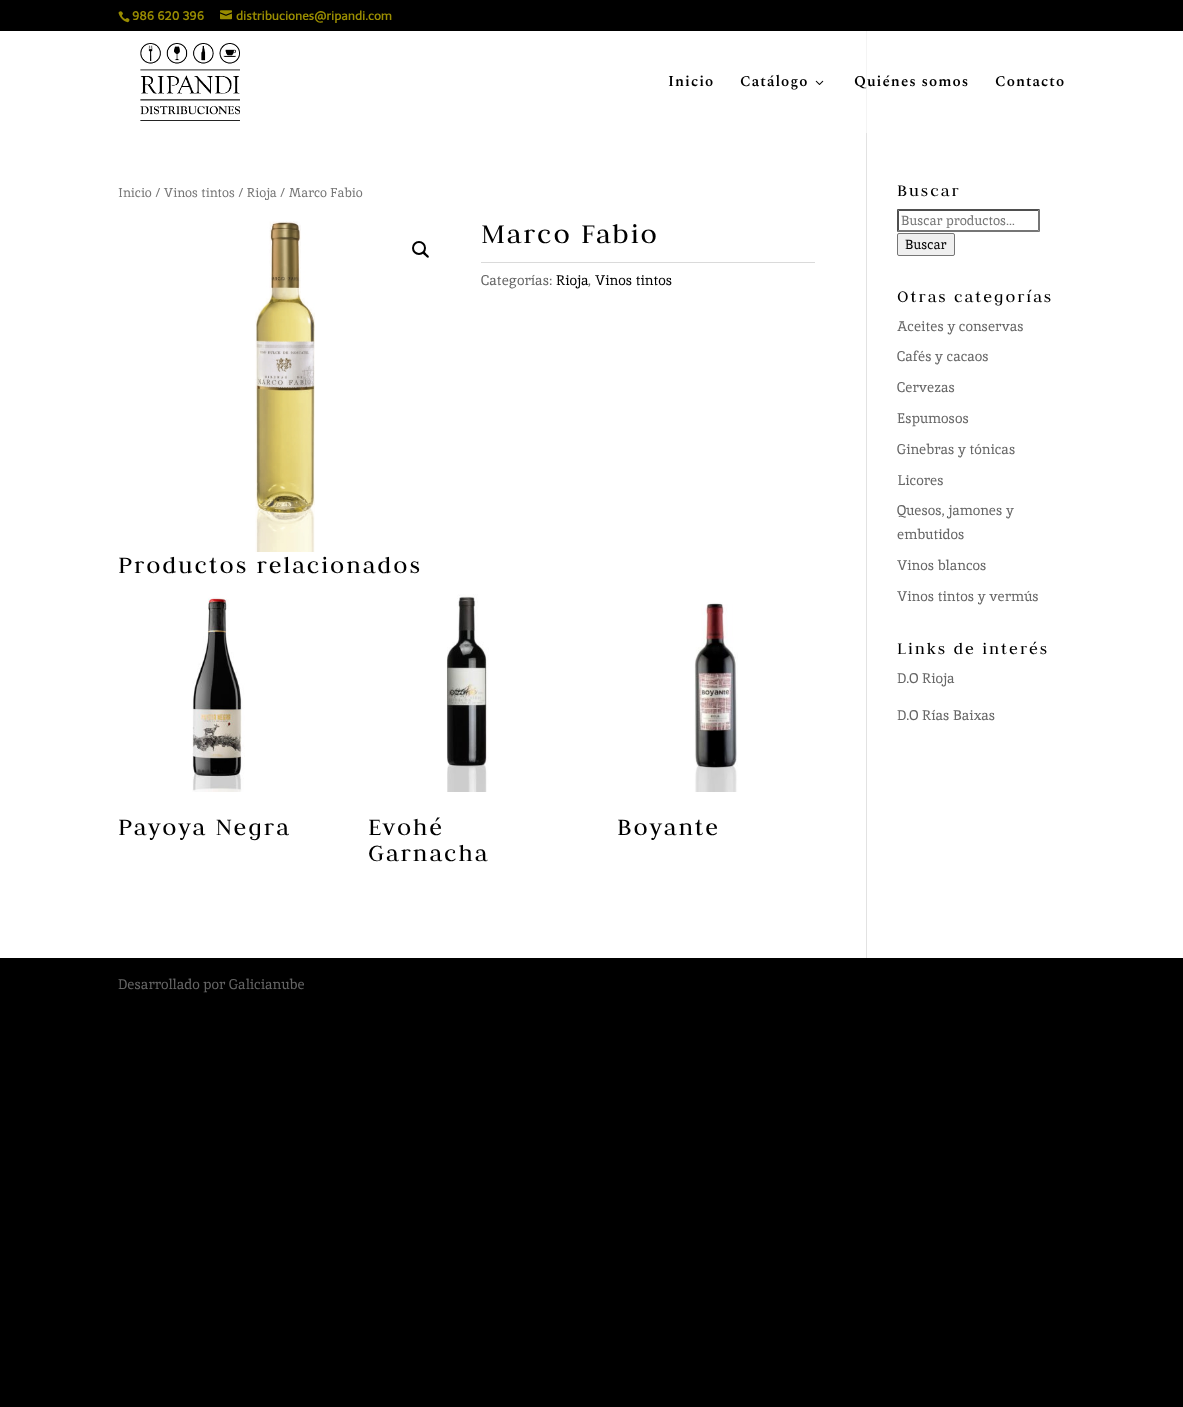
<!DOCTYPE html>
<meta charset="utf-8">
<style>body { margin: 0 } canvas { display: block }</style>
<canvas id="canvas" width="1183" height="1407"></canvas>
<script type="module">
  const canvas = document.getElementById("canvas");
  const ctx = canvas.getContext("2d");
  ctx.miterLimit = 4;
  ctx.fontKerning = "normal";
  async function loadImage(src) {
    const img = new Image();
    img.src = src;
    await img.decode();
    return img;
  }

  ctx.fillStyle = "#000000";
  ctx.fillRect(0, 0, 1183, 1407);
  ctx.drawImage(await loadImage("img1.png"), 118, 11, 12, 12);
  ctx.font = "bold 12px Telex";
  ctx.fillStyle = "#998c00";
  ctx.fillText("986 620 396", 132, 20);
  ctx.drawImage(await loadImage("img2.png"), 220, 10, 12, 10);
  ctx.fillText("distribuciones@ripandi.com", 236, 20);
  ctx.fillStyle = "#ffffff";
  ctx.fillRect(0, 31, 1183, 927);
  ctx.drawImage(await loadImage("img3.png"), 140, 43, 100, 78);
  ctx.letterSpacing = "1px";
  ctx.font = "600 15px Spectral";
  ctx.fillStyle = "#000000";
  ctx.fillText("Inicio", 668, 86);
  ctx.fillText("Catálogo", 740, 86);
  ctx.drawImage(await loadImage("img4.png"), 815, 80, 9, 5);
  ctx.fillStyle = "#f4f4f4";
  ctx.fillRect(866, 31, 1, 102);
  ctx.fillStyle = "#000000";
  ctx.fillText("Quiénes somos", 854, 86);
  ctx.fillText("Contacto", 995, 86);
  ctx.fillStyle = "#e2e2e2";
  ctx.fillRect(866, 133, 1, 825);
  ctx.letterSpacing = "0px";
  ctx.font = "12.9px Inika";
  ctx.fillStyle = "#767676";
  ctx.fillText("Inicio / Vinos tintos / Rioja / Marco Fabio", 118, 197);
  ctx.drawImage(await loadImage("img5.png"), 255, 221, 60, 331);
  ctx.beginPath();
  ctx.arc(419, 248, 6, 0, Math.PI * 2);
  ctx.strokeStyle = "#000000";
  ctx.lineWidth = 2;
  ctx.stroke();
  ctx.fillStyle = "#000000";
  ctx.beginPath();
  ctx.moveTo(423, 252);
  ctx.bezierCurveTo(424, 250.5, 426, 253.5, 426.5, 254);
  ctx.bezierCurveTo(427, 254.5, 430, 256.5, 428.5, 257.5);
  ctx.bezierCurveTo(427.5, 258.5, 425.5, 256, 425, 255.5);
  ctx.bezierCurveTo(424.5, 255, 421.5, 253, 423, 252);
  ctx.closePath();
  ctx.fill();
  ctx.letterSpacing = "2px";
  ctx.font = "30px Judson";
  ctx.fillText("Marco Fabio", 481, 243);
  ctx.fillStyle = "#dadada";
  ctx.fillRect(481, 262, 334, 1);
  ctx.letterSpacing = "0px";
  ctx.font = "14px Inika";
  ctx.fillStyle = "#666666";
  ctx.fillText("Categorías:", 481, 285);
  ctx.fillStyle = "#000000";
  ctx.fillText("Rioja", 556, 285);
  ctx.fillStyle = "#666666";
  ctx.fillText(",", 588, 285);
  ctx.fillStyle = "#000000";
  ctx.fillText("Vinos tintos", 595, 285);
  ctx.letterSpacing = "2px";
  ctx.font = "26px Judson";
  ctx.fillText("Productos relacionados", 118, 573);
  ctx.drawImage(await loadImage("img6.png"), 192, 597, 53, 195);
  ctx.fillText("Payoya Negra", 118, 835);
  ctx.drawImage(await loadImage("img7.png"), 446, 594, 43, 198);
  ctx.fillText("Evohé", 368, 835);
  ctx.fillText("Garnacha", 368, 861);
  ctx.drawImage(await loadImage("img8.png"), 694, 602, 44, 190);
  ctx.fillText("Boyante", 617, 835);
  ctx.font = "18px Judson";
  ctx.fillText("Buscar", 897, 196);
  ctx.fillStyle = "#4f4f4f";
  ctx.beginPath();
  ctx.moveTo(897, 209);
  ctx.lineTo(1040, 209);
  ctx.lineTo(1038, 211);
  ctx.lineTo(899, 211);
  ctx.closePath();
  ctx.fill();
  ctx.fillStyle = "#767676";
  ctx.beginPath();
  ctx.moveTo(1040, 209);
  ctx.lineTo(1040, 232);
  ctx.lineTo(1038, 230);
  ctx.lineTo(1038, 211);
  ctx.closePath();
  ctx.fill();
  ctx.beginPath();
  ctx.moveTo(1040, 232);
  ctx.lineTo(897, 232);
  ctx.lineTo(899, 230);
  ctx.lineTo(1038, 230);
  ctx.closePath();
  ctx.fill();
  ctx.fillStyle = "#4f4f4f";
  ctx.beginPath();
  ctx.moveTo(897, 232);
  ctx.lineTo(897, 209);
  ctx.lineTo(899, 211);
  ctx.lineTo(899, 230);
  ctx.closePath();
  ctx.fill();
  ctx.letterSpacing = "0px";
  ctx.font = "13.25px Inika";
  ctx.fillStyle = "#767676";
  ctx.fillText("Buscar productos…", 901, 225);
  ctx.fillStyle = "#efefef";
  ctx.beginPath();
  ctx.roundRect(897.5, 233.5, 57, 22, 1.5);
  ctx.fill();
  ctx.strokeStyle = "#767676";
  ctx.lineWidth = 1;
  ctx.stroke();
  ctx.fillStyle = "#000000";
  ctx.fillText("Buscar", 905, 249);
  ctx.letterSpacing = "2px";
  ctx.font = "18px Judson";
  ctx.fillText("Otras categorías", 897, 302);
  ctx.letterSpacing = "0px";
  ctx.font = "14px Inika";
  ctx.fillStyle = "#666666";
  ctx.fillText("Aceites y conservas", 897, 331);
  ctx.fillText("Cafés y cacaos", 897, 361);
  ctx.fillText("Cervezas", 897, 392);
  ctx.fillText("Espumosos", 897, 423);
  ctx.fillText("Ginebras y tónicas", 897, 454);
  ctx.fillText("Licores", 897, 485);
  ctx.fillText("Quesos, jamones y", 897, 515);
  ctx.fillText("embutidos", 897, 539);
  ctx.fillText("Vinos blancos", 897, 570);
  ctx.fillText("Vinos tintos y vermús", 897, 601);
  ctx.letterSpacing = "2px";
  ctx.font = "18px Judson";
  ctx.fillStyle = "#000000";
  ctx.fillText("Links de interés", 897, 654);
  ctx.letterSpacing = "0px";
  ctx.font = "14px Inika";
  ctx.fillStyle = "#666666";
  ctx.fillText("D.O Rioja", 897, 683);
  ctx.fillText("D.O Rías Baixas", 897, 720);
  ctx.fillText("Desarrollado por Galicianube", 118, 989);
</script>
